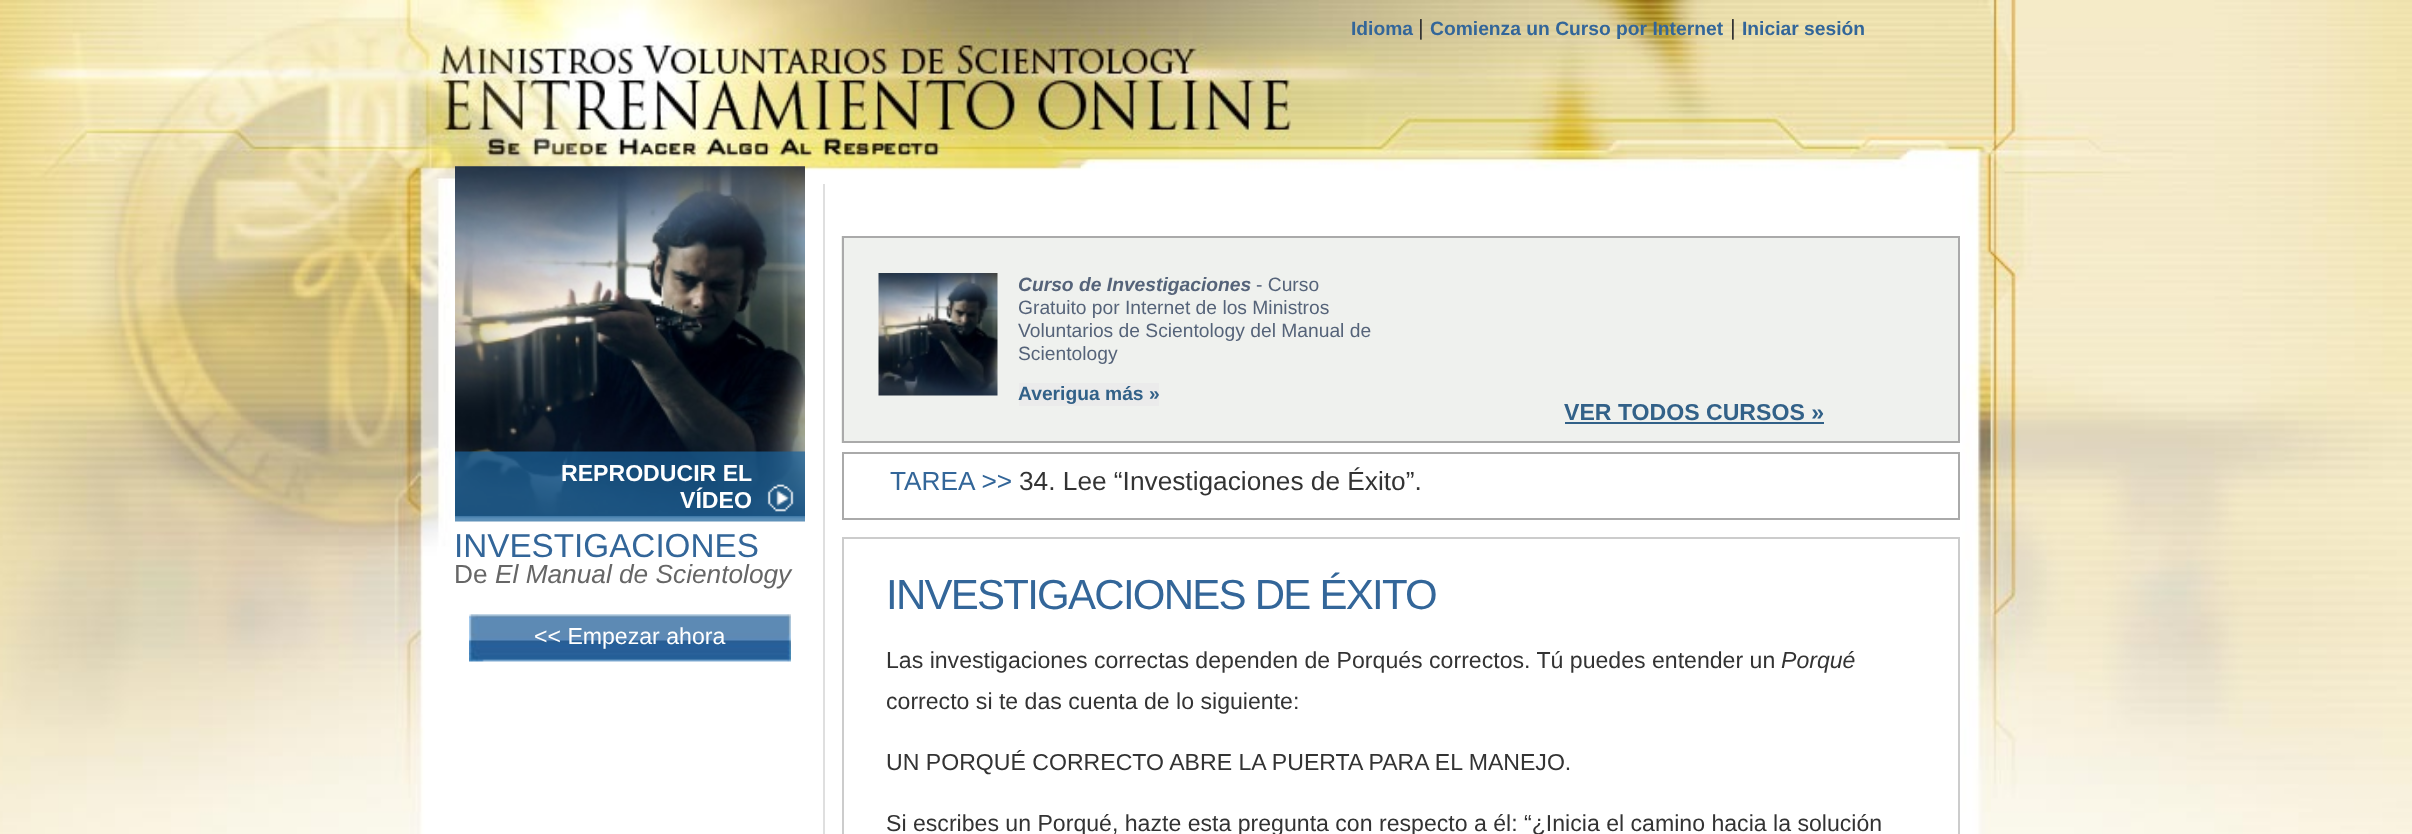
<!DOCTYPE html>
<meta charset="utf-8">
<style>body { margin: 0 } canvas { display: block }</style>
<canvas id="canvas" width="2412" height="834"></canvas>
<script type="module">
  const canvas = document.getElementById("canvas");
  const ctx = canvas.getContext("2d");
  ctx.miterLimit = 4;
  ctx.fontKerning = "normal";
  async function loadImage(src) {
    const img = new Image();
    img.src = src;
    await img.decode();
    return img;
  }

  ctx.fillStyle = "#ffffff";
  ctx.fillRect(0, 0, 2412, 834);
  ctx.drawImage(await loadImage("img1.png"), 0, 0, 2412, 834);
  ctx.font = "bold 19.25px Liberation Sans";
  ctx.fillStyle = "#336699";
  ctx.fillText("Idioma", 1351, 35);
  ctx.font = "22px Liberation Sans";
  ctx.fillStyle = "#333333";
  ctx.fillText("|", 1418, 35);
  ctx.font = "bold 19.25px Liberation Sans";
  ctx.fillStyle = "#336699";
  ctx.fillText("Comienza un Curso por Internet", 1430, 35);
  ctx.font = "22px Liberation Sans";
  ctx.fillStyle = "#333333";
  ctx.fillText("|", 1730, 35);
  ctx.font = "bold 19.25px Liberation Sans";
  ctx.fillStyle = "#336699";
  ctx.fillText("Iniciar sesión", 1742, 35);
  ctx.drawImage(await loadImage("img2.png"), 455, 166, 350, 351);
  ctx.drawImage(await loadImage("img3.png"), 455, 451, 350, 71);
  ctx.font = "bold 23.1px Liberation Sans";
  ctx.fillStyle = "#ffffff";
  ctx.fillText("REPRODUCIR EL", 561, 481);
  ctx.fillText("VÍDEO", 680, 508);
  ctx.font = "33.25px Liberation Sans";
  ctx.fillStyle = "#336699";
  ctx.fillText("INVESTIGACIONES", 454, 557);
  ctx.font = "26.25px Liberation Sans";
  ctx.fillStyle = "#666666";
  ctx.fillText("De", 454, 583);
  ctx.font = "italic 26.25px Liberation Sans";
  ctx.fillText("El Manual de Scientology", 495, 583);
  ctx.drawImage(await loadImage("img4.png"), 469, 614, 322, 48);
  ctx.font = "23.1px Liberation Sans";
  ctx.fillStyle = "#ffffff";
  ctx.fillText("<< Empezar ahora", 534, 644);
  ctx.fillStyle = "#dfdfdf";
  ctx.fillRect(823, 184, 2, 650);
  ctx.fillStyle = "#eff1ee";
  ctx.fillRect(841, 236, 1117, 207);
  ctx.strokeStyle = "#aaaaaa";
  ctx.lineWidth = 2;
  ctx.strokeRect(843, 237, 1116, 205);
  ctx.drawImage(await loadImage("img5.png"), 878, 273, 120, 123);
  ctx.font = "italic bold 19.25px Liberation Sans";
  ctx.fillStyle = "#556379";
  ctx.fillText("Curso de Investigaciones", 1018, 291);
  ctx.font = "19.25px Liberation Sans";
  ctx.fillText("- Curso", 1256, 291);
  ctx.fillText("Gratuito por Internet de los Ministros", 1018, 314);
  ctx.fillText("Voluntarios de Scientology del Manual de", 1018, 337);
  ctx.fillText("Scientology", 1018, 360);
  ctx.fillStyle = "#ebebeb";
  ctx.fillRect(1019, 383, 140, 23);
  ctx.font = "bold 19.25px Liberation Sans";
  ctx.fillStyle = "#326188";
  ctx.fillText("Averigua más »", 1018, 400);
  ctx.font = "bold 23.1px Liberation Sans";
  ctx.fillText("VER TODOS CURSOS »", 1564, 420);
  ctx.fillRect(1565, 422, 259, 2);
  ctx.strokeRect(843, 453, 1116, 66);
  ctx.font = "26.25px Liberation Sans";
  ctx.fillStyle = "#336699";
  ctx.fillText("TAREA >>", 890, 490);
  ctx.fillStyle = "#333333";
  ctx.fillText("34. Lee “Investigaciones de Éxito”.", 1019, 490);
  ctx.strokeStyle = "#cccccc";
  ctx.strokeRect(843, 538, 1116, 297);
  ctx.letterSpacing = "-1.75px";
  ctx.font = "42px Liberation Sans";
  ctx.fillStyle = "#336699";
  ctx.fillText("INVESTIGACIONES DE ÉXITO", 886, 609);
  ctx.letterSpacing = "0px";
  ctx.font = "23.1px Liberation Sans";
  ctx.fillStyle = "#333333";
  ctx.fillText("Las investigaciones correctas dependen de Porqués correctos. Tú puedes entender un", 886, 668);
  ctx.font = "italic 23.1px Liberation Sans";
  ctx.fillText("Porqué", 1781, 668);
  ctx.font = "23.1px Liberation Sans";
  ctx.fillText("correcto si te das cuenta de lo siguiente:", 886, 709);
  ctx.fillText("UN PORQUÉ CORRECTO ABRE LA PUERTA PARA EL MANEJO.", 886, 770);
  ctx.fillText("Si escribes un Porqué, hazte esta pregunta con respecto a él: “¿Inicia el camino hacia la solución", 886, 831);
</script>
